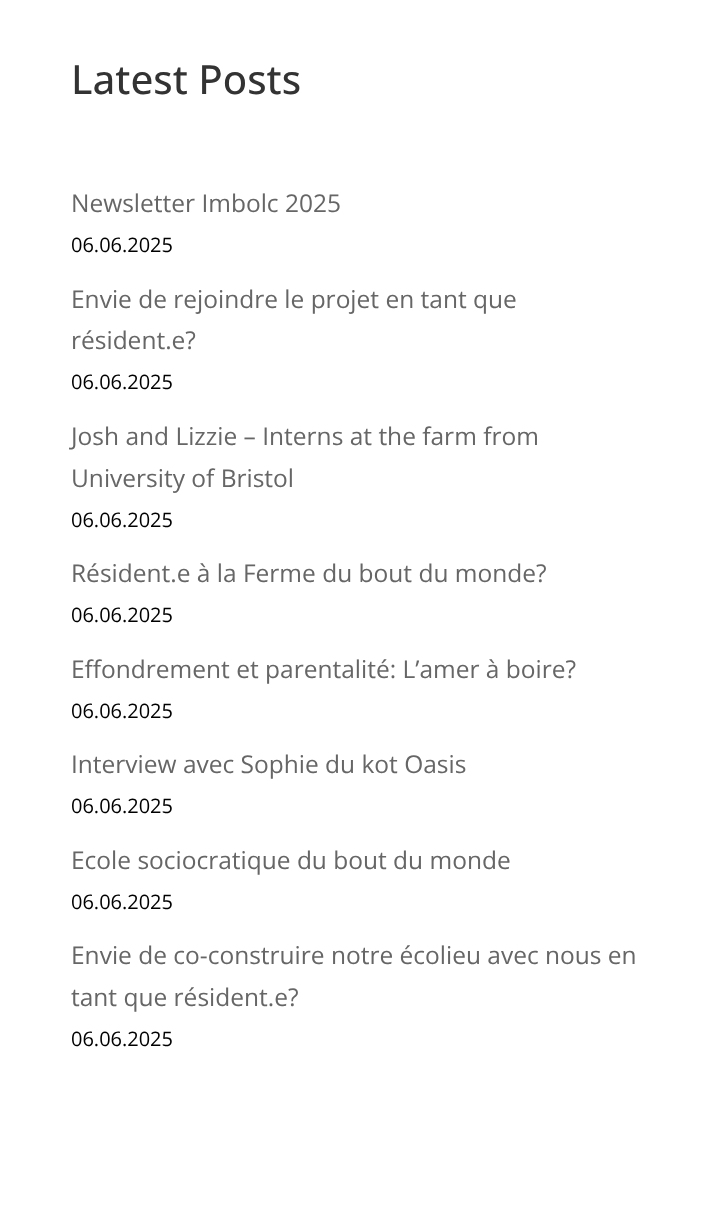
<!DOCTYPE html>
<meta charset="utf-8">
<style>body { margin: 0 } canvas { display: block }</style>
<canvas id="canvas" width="713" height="1226"></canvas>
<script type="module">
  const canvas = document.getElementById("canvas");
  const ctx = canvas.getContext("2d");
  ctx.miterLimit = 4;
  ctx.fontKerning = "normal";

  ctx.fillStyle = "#ffffff";
  ctx.fillRect(0, 0, 713, 1226);
  ctx.font = "500 40.25px Open Sans";
  ctx.fillStyle = "#333333";
  ctx.fillText("Latest Posts", 71, 94);
  ctx.font = "24.5px Open Sans";
  ctx.fillStyle = "#666666";
  ctx.fillText("Newsletter Imbolc 2025", 71, 212);
  ctx.font = "20px Open Sans";
  ctx.fillStyle = "#000000";
  ctx.fillText("06.06.2025", 71, 252);
  ctx.font = "24.5px Open Sans";
  ctx.fillStyle = "#666666";
  ctx.fillText("Envie de rejoindre le projet en tant que", 71, 308);
  ctx.fillText("résident.e?", 71, 349);
  ctx.font = "20px Open Sans";
  ctx.fillStyle = "#000000";
  ctx.fillText("06.06.2025", 71, 389);
  ctx.font = "24.5px Open Sans";
  ctx.fillStyle = "#666666";
  ctx.fillText("Josh and Lizzie – Interns at the farm from", 71, 445);
  ctx.fillText("University of Bristol", 71, 487);
  ctx.font = "20px Open Sans";
  ctx.fillStyle = "#000000";
  ctx.fillText("06.06.2025", 71, 527);
  ctx.font = "24.5px Open Sans";
  ctx.fillStyle = "#666666";
  ctx.fillText("Résident.e à la Ferme du bout du monde?", 71, 582);
  ctx.font = "20px Open Sans";
  ctx.fillStyle = "#000000";
  ctx.fillText("06.06.2025", 71, 622);
  ctx.font = "24.5px Open Sans";
  ctx.fillStyle = "#666666";
  ctx.fillText("Effondrement et parentalité: L’amer à boire?", 71, 678);
  ctx.font = "20px Open Sans";
  ctx.fillStyle = "#000000";
  ctx.fillText("06.06.2025", 71, 718);
  ctx.font = "24.5px Open Sans";
  ctx.fillStyle = "#666666";
  ctx.fillText("Interview avec Sophie du kot Oasis ", 71, 773);
  ctx.font = "20px Open Sans";
  ctx.fillStyle = "#000000";
  ctx.fillText("06.06.2025", 71, 813);
  ctx.font = "24.5px Open Sans";
  ctx.fillStyle = "#666666";
  ctx.fillText("Ecole sociocratique du bout du monde", 71, 869);
  ctx.font = "20px Open Sans";
  ctx.fillStyle = "#000000";
  ctx.fillText("06.06.2025", 71, 909);
  ctx.font = "24.5px Open Sans";
  ctx.fillStyle = "#666666";
  ctx.fillText("Envie de co-construire notre écolieu avec nous en", 71, 964);
  ctx.fillText("tant que résident.e?", 71, 1006);
  ctx.font = "20px Open Sans";
  ctx.fillStyle = "#000000";
  ctx.fillText("06.06.2025", 71, 1046);
</script>
